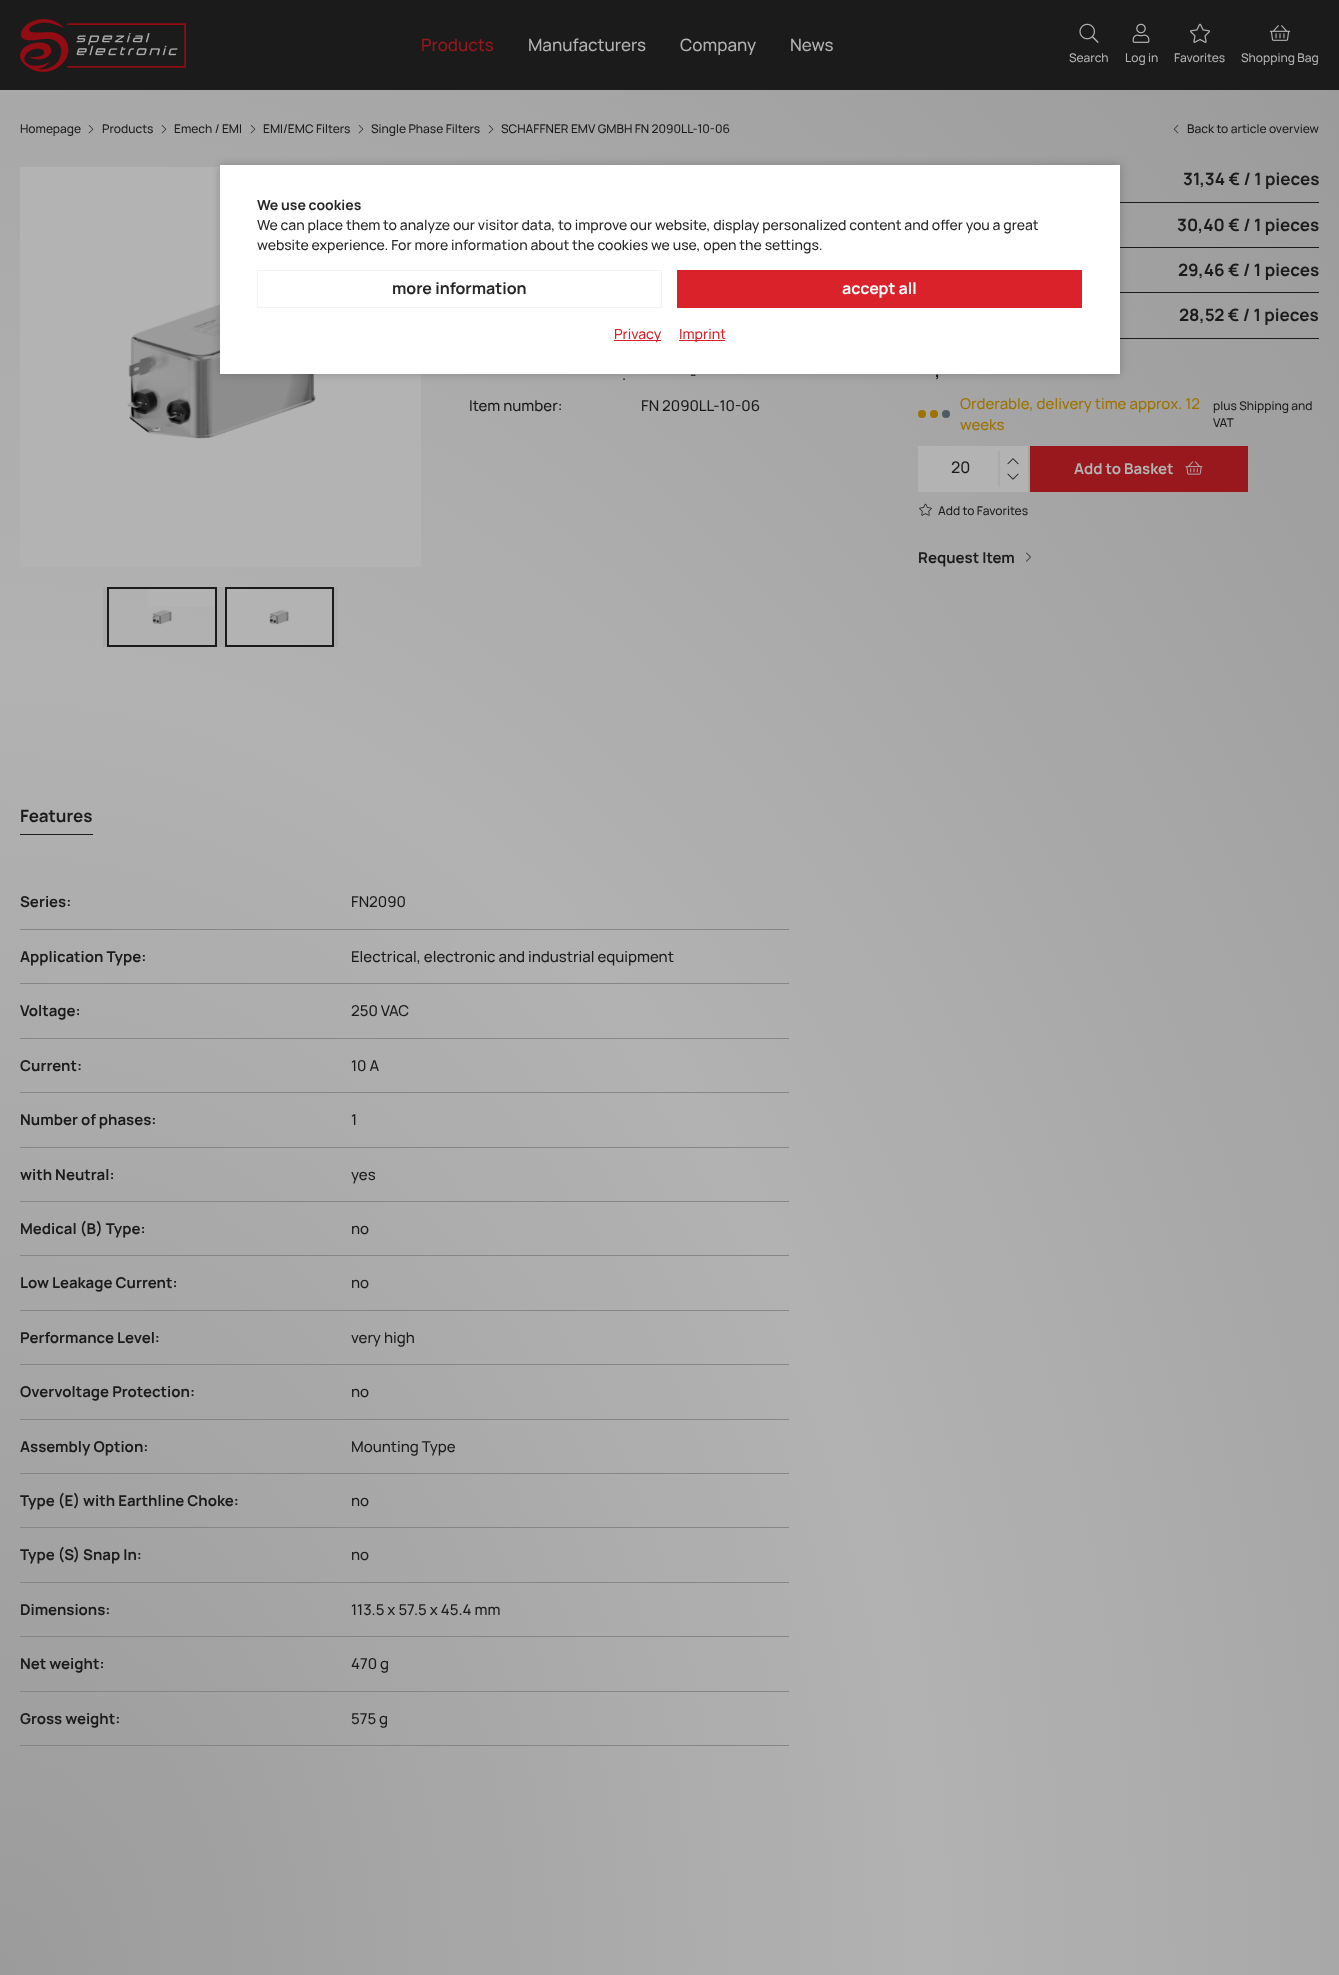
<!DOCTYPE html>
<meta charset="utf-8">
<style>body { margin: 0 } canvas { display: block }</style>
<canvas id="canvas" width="1339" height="1975"></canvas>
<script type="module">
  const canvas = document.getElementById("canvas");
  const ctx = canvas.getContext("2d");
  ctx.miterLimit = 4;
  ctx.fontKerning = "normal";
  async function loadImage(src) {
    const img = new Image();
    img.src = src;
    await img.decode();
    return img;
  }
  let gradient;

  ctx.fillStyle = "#ffffff";
  ctx.fillRect(0, 0, 1339, 1975);
  ctx.fillStyle = "#1b1b1b";
  ctx.fillRect(0, 0, 1339, 90);
  ctx.drawImage(await loadImage("img1.png"), 20, 19, 166, 53);
  ctx.font = "500 17px Manrope";
  ctx.fillStyle = "#98181d";
  ctx.fillText("Products", 421, 51);
  ctx.fillStyle = "#b3b3b3";
  ctx.fillText("Manufacturers", 528, 51);
  ctx.fillText("Company", 680, 51);
  ctx.fillText("News", 790, 51);
  ctx.drawImage(await loadImage("img2.png"), 1079, 23, 20, 20);
  ctx.font = "500 12px Manrope";
  ctx.fillText("Search", 1069, 62);
  ctx.drawImage(await loadImage("img3.png"), 1132, 23, 18, 20);
  ctx.fillText("Log in", 1125, 62);
  ctx.drawImage(await loadImage("img4.png"), 1190, 23, 20, 20);
  ctx.fillText("Favorites", 1174, 62);
  ctx.drawImage(await loadImage("img5.png"), 1269, 25, 22, 16);
  ctx.fillText("Shopping Bag", 1241, 62);
  gradient = ctx.createRadialGradient(0, 1403.02, 0, 0, 1403.02, 1894);
  gradient.addColorStop(0, "#9b9b9b");
  gradient.addColorStop(0.49, "#b2b2b2");
  gradient.addColorStop(1, "#9b9b9b");
  ctx.fillStyle = gradient;
  ctx.beginPath();
  ctx.rect(0, 90, 1339, 1885);
  ctx.save();
  ctx.clip();
  ctx.scale(1, 2681 / 1894);
  ctx.fillRect(0, 0, 1339, 1396);
  ctx.restore();
  ctx.fillStyle = "#1b1b1b";
  ctx.fillText("Homepage", 20, 133);
  ctx.drawImage(await loadImage("img6.png"), 88, 125, 6, 9);
  ctx.fillText("Products", 102, 133);
  ctx.drawImage(await loadImage("img7.png"), 161, 125, 6, 9);
  ctx.fillText("Emech / EMI", 174, 133);
  ctx.drawImage(await loadImage("img7.png"), 250, 125, 6, 9);
  ctx.fillText("EMI/EMC Filters", 263, 133);
  ctx.drawImage(await loadImage("img8.png"), 358, 125, 6, 9);
  ctx.fillText("Single Phase Filters", 371, 133);
  ctx.drawImage(await loadImage("img9.png"), 488, 125, 6, 9);
  ctx.fillText("SCHAFFNER EMV GMBH FN 2090LL-10-06", 501, 133);
  ctx.drawImage(await loadImage("img10.png"), 1173, 125, 6, 9);
  ctx.fillText("Back to article overview", 1187, 133);
  ctx.fillStyle = "#b3b3b3";
  ctx.fillRect(20, 167, 401, 400);
  ctx.drawImage(await loadImage("img11.png"), 127, 304, 189, 135);
  ctx.fillRect(148, 589, 67, 18);
  ctx.fillStyle = "#aaaaaa";
  ctx.fillRect(217, 587, 8, 60);
  ctx.fillRect(103, 587, 4, 60);
  ctx.strokeStyle = "#1b1b1b";
  ctx.lineWidth = 2;
  ctx.strokeRect(108, 588, 108, 58);
  ctx.drawImage(await loadImage("img12.png"), 152, 610, 20, 15);
  ctx.fillRect(334, 587, 4, 60);
  ctx.fillStyle = "#b3b3b3";
  ctx.beginPath();
  ctx.rect(226, 588, 107, 58);
  ctx.fill();
  ctx.stroke();
  ctx.drawImage(await loadImage("img12.png"), 269, 610, 20, 15);
  ctx.font = "500 15px Manrope";
  ctx.fillStyle = "#1b1b1b";
  ctx.fillText("-", 690, 380);
  ctx.fillText(".", 622, 380);
  ctx.fillText("Item number:", 469, 411);
  ctx.fillText("FN 2090LL-10-06", 641, 411);
  ctx.fillRect(1120, 202, 199, 1);
  ctx.font = "bold 17px Manrope";
  ctx.fillText("31,34 € / 1 pieces", 1183, 185);
  ctx.fillRect(1120, 247, 199, 1);
  ctx.fillText("30,40 € / 1 pieces", 1177, 231);
  ctx.fillRect(1120, 292, 199, 1);
  ctx.fillText("29,46 € / 1 pieces", 1178, 276);
  ctx.fillRect(1120, 338, 199, 1);
  ctx.fillText("28,52 € / 1 pieces", 1179, 321);
  ctx.fillText(",", 935, 377);
  ctx.font = "500 15px Manrope";
  ctx.fillStyle = "#9d7300";
  ctx.fillText("Orderable, delivery time approx. 12", 960, 409);
  ctx.beginPath();
  ctx.arc(922, 414, 4, 0, Math.PI * 2);
  ctx.fill();
  ctx.beginPath();
  ctx.arc(934, 414, 4, 0, Math.PI * 2);
  ctx.fill();
  ctx.fillStyle = "#515a61";
  ctx.beginPath();
  ctx.arc(946, 414, 4, 0, Math.PI * 2);
  ctx.fill();
  ctx.fillStyle = "#9d7300";
  ctx.fillText("weeks", 960, 430);
  ctx.font = "500 12px Manrope";
  ctx.fillStyle = "#1b1b1b";
  ctx.fillText("plus Shipping and", 1213, 410);
  ctx.fillText("VAT", 1213, 427);
  ctx.fillStyle = "#b3b3b3";
  ctx.fillRect(918, 446, 110, 46);
  ctx.font = "500 16px Manrope";
  ctx.fillStyle = "#1b1b1b";
  ctx.fillText("20", 951, 473);
  ctx.fillStyle = "#aaaaaa";
  ctx.fillRect(998, 451, 2, 36);
  ctx.drawImage(await loadImage("img13.png"), 1007, 458, 12, 7);
  ctx.drawImage(await loadImage("img14.png"), 1007, 473, 12, 7);
  ctx.fillStyle = "#98181d";
  ctx.fillRect(1030, 446, 218, 46);
  ctx.font = "bold 15px Manrope";
  ctx.fillStyle = "#b3b3b3";
  ctx.fillText("Add to Basket", 1074, 474);
  ctx.drawImage(await loadImage("img15.png"), 1185, 461, 18, 14);
  ctx.drawImage(await loadImage("img16.png"), 919, 503, 13, 13);
  ctx.font = "500 12px Manrope";
  ctx.fillStyle = "#1b1b1b";
  ctx.fillText("Add to Favorites", 938, 515);
  ctx.font = "bold 15px Manrope";
  ctx.fillText("Request Item", 918, 563);
  ctx.drawImage(await loadImage("img17.png"), 1026, 552, 5, 10);
  ctx.fillRect(20, 834, 73, 1);
  ctx.font = "bold 17px Manrope";
  ctx.fillText("Features", 20, 822);
  ctx.font = "bold 15px Manrope";
  ctx.fillText("Series:", 20, 907);
  ctx.fillStyle = "#868686";
  ctx.fillRect(20, 929, 769, 1);
  ctx.font = "500 15px Manrope";
  ctx.fillStyle = "#1b1b1b";
  ctx.fillText("FN2090", 351, 907);
  ctx.font = "bold 15px Manrope";
  ctx.fillText("Application Type:", 20, 962);
  ctx.fillStyle = "#868686";
  ctx.fillRect(20, 983, 769, 1);
  ctx.font = "500 15px Manrope";
  ctx.fillStyle = "#1b1b1b";
  ctx.fillText("Electrical, electronic and industrial equipment", 351, 962);
  ctx.font = "bold 15px Manrope";
  ctx.fillText("Voltage:", 20, 1016);
  ctx.fillStyle = "#868686";
  ctx.fillRect(20, 1038, 769, 1);
  ctx.font = "500 15px Manrope";
  ctx.fillStyle = "#1b1b1b";
  ctx.fillText("250 VAC", 351, 1016);
  ctx.font = "bold 15px Manrope";
  ctx.fillText("Current:", 20, 1071);
  ctx.fillStyle = "#868686";
  ctx.fillRect(20, 1092, 769, 1);
  ctx.font = "500 15px Manrope";
  ctx.fillStyle = "#1b1b1b";
  ctx.fillText("10 A", 351, 1071);
  ctx.font = "bold 15px Manrope";
  ctx.fillText("Number of phases:", 20, 1125);
  ctx.fillStyle = "#868686";
  ctx.fillRect(20, 1147, 769, 1);
  ctx.font = "500 15px Manrope";
  ctx.fillStyle = "#1b1b1b";
  ctx.fillText("1", 351, 1125);
  ctx.font = "bold 15px Manrope";
  ctx.fillText("with Neutral:", 20, 1180);
  ctx.fillStyle = "#868686";
  ctx.fillRect(20, 1201, 769, 1);
  ctx.font = "500 15px Manrope";
  ctx.fillStyle = "#1b1b1b";
  ctx.fillText("yes", 351, 1180);
  ctx.font = "bold 15px Manrope";
  ctx.fillText("Medical (B) Type:", 20, 1234);
  ctx.fillStyle = "#868686";
  ctx.fillRect(20, 1255, 769, 1);
  ctx.font = "500 15px Manrope";
  ctx.fillStyle = "#1b1b1b";
  ctx.fillText("no", 351, 1234);
  ctx.font = "bold 15px Manrope";
  ctx.fillText("Low Leakage Current:", 20, 1288);
  ctx.fillStyle = "#868686";
  ctx.fillRect(20, 1310, 769, 1);
  ctx.font = "500 15px Manrope";
  ctx.fillStyle = "#1b1b1b";
  ctx.fillText("no", 351, 1288);
  ctx.font = "bold 15px Manrope";
  ctx.fillText("Performance Level:", 20, 1343);
  ctx.fillStyle = "#868686";
  ctx.fillRect(20, 1364, 769, 1);
  ctx.font = "500 15px Manrope";
  ctx.fillStyle = "#1b1b1b";
  ctx.fillText("very high", 351, 1343);
  ctx.font = "bold 15px Manrope";
  ctx.fillText("Overvoltage Protection:", 20, 1397);
  ctx.fillStyle = "#868686";
  ctx.fillRect(20, 1419, 769, 1);
  ctx.font = "500 15px Manrope";
  ctx.fillStyle = "#1b1b1b";
  ctx.fillText("no", 351, 1397);
  ctx.font = "bold 15px Manrope";
  ctx.fillText("Assembly Option:", 20, 1452);
  ctx.fillStyle = "#868686";
  ctx.fillRect(20, 1473, 769, 1);
  ctx.font = "500 15px Manrope";
  ctx.fillStyle = "#1b1b1b";
  ctx.fillText("Mounting Type", 351, 1452);
  ctx.font = "bold 15px Manrope";
  ctx.fillText("Type (E) with Earthline Choke:", 20, 1506);
  ctx.fillStyle = "#868686";
  ctx.fillRect(20, 1527, 769, 1);
  ctx.font = "500 15px Manrope";
  ctx.fillStyle = "#1b1b1b";
  ctx.fillText("no", 351, 1506);
  ctx.font = "bold 15px Manrope";
  ctx.fillText("Type (S) Snap In:", 20, 1560);
  ctx.fillStyle = "#868686";
  ctx.fillRect(20, 1582, 769, 1);
  ctx.font = "500 15px Manrope";
  ctx.fillStyle = "#1b1b1b";
  ctx.fillText("no", 351, 1560);
  ctx.font = "bold 15px Manrope";
  ctx.fillText("Dimensions:", 20, 1615);
  ctx.fillStyle = "#868686";
  ctx.fillRect(20, 1636, 769, 1);
  ctx.font = "500 15px Manrope";
  ctx.fillStyle = "#1b1b1b";
  ctx.fillText("113.5 x 57.5 x 45.4 mm", 351, 1615);
  ctx.font = "bold 15px Manrope";
  ctx.fillText("Net weight:", 20, 1669);
  ctx.fillStyle = "#868686";
  ctx.fillRect(20, 1691, 769, 1);
  ctx.font = "500 15px Manrope";
  ctx.fillStyle = "#1b1b1b";
  ctx.fillText("470 g", 351, 1669);
  ctx.font = "bold 15px Manrope";
  ctx.fillText("Gross weight:", 20, 1724);
  ctx.fillStyle = "#868686";
  ctx.fillRect(20, 1745, 769, 1);
  ctx.font = "500 15px Manrope";
  ctx.fillStyle = "#1b1b1b";
  ctx.fillText("575 g", 351, 1724);
  ctx.fillStyle = "rgba(0, 0, 0, 0.2)";
  ctx.filter = "blur(5px)";
  ctx.beginPath();
  ctx.rect(220, 165, 900, 209);
  ctx.fill();
  ctx.filter = "none";
  ctx.fillStyle = "#ffffff";
  ctx.fillRect(220, 165, 900, 209);
  ctx.font = "bold 14px Manrope";
  ctx.fillStyle = "#262626";
  ctx.fillText("We use cookies", 257, 210);
  ctx.font = "500 14px Manrope";
  ctx.fillText("We can place them to analyze our visitor data, to improve our website, display personalized content and offer you a great", 257, 230);
  ctx.fillText("website experience. For more information about the cookies we use, open the settings.", 257, 250);
  ctx.strokeStyle = "#f3f3f3";
  ctx.lineWidth = 1;
  ctx.strokeRect(257.5, 270.5, 404, 37);
  ctx.font = "bold 16px Manrope";
  ctx.fillText("more information", 392, 294);
  ctx.fillStyle = "#d9222a";
  ctx.fillRect(677, 270, 405, 38);
  ctx.fillStyle = "#ffffff";
  ctx.fillText("accept all", 842, 294);
  ctx.fillStyle = "#d9222a";
  ctx.fillRect(614, 340, 47, 1);
  ctx.font = "500 14px Manrope";
  ctx.fillText("Privacy", 614, 339);
  ctx.fillRect(679, 340, 46, 1);
  ctx.fillText("Imprint", 679, 339);
</script>
